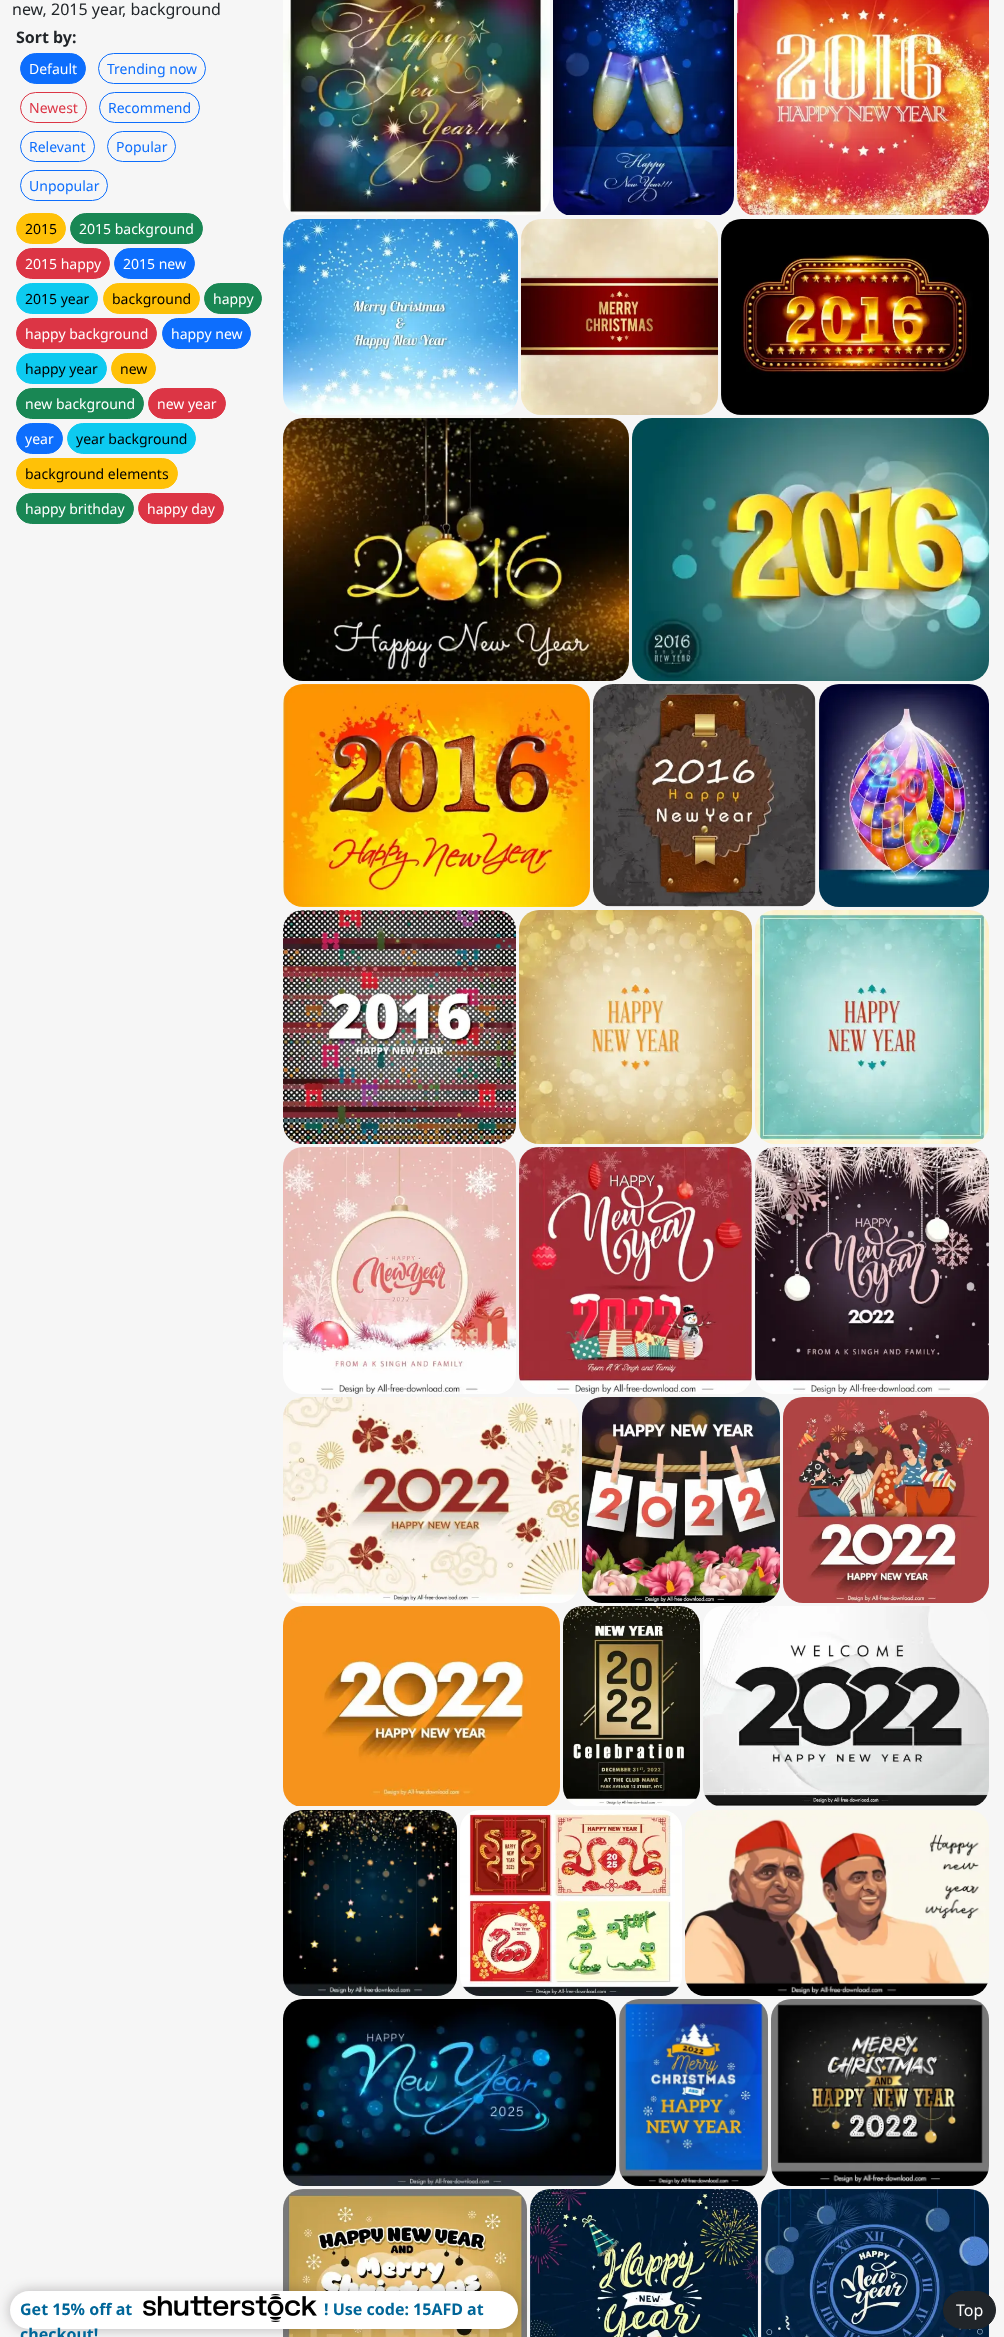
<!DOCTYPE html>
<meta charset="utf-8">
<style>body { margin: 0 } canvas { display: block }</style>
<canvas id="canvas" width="1004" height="2337"></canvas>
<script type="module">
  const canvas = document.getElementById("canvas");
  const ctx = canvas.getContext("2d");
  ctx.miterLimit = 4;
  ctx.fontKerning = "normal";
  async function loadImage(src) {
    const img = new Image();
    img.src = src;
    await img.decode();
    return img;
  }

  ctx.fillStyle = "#f6f6f6";
  ctx.fillRect(0, 0, 1004, 2337);
  ctx.font = "16px Noto Sans";
  ctx.fillStyle = "#212529";
  ctx.fillText("new, 2015 year, background", 12, 15);
  ctx.font = "bold 16px Noto Sans";
  ctx.fillText("Sort by:", 16, 43);
  ctx.fillStyle = "#0d6efd";
  ctx.beginPath();
  ctx.roundRect(20.5, 53.5, 65, 30, 15);
  ctx.fill();
  ctx.strokeStyle = "#0d6efd";
  ctx.stroke();
  ctx.font = "14px Noto Sans";
  ctx.fillStyle = "#ffffff";
  ctx.fillText("Default", 29, 74);
  ctx.beginPath();
  ctx.roundRect(98.5, 53.5, 107, 30, 15);
  ctx.stroke();
  ctx.fillStyle = "#0d6efd";
  ctx.fillText("Trending now", 107, 74);
  ctx.beginPath();
  ctx.roundRect(20.5, 92.5, 66, 30, 15);
  ctx.strokeStyle = "#dc3545";
  ctx.stroke();
  ctx.fillStyle = "#dc3545";
  ctx.fillText("Newest", 29, 113);
  ctx.beginPath();
  ctx.roundRect(99.5, 92.5, 100, 30, 15);
  ctx.strokeStyle = "#0d6efd";
  ctx.stroke();
  ctx.fillStyle = "#0d6efd";
  ctx.fillText("Recommend", 108, 113);
  ctx.beginPath();
  ctx.roundRect(20.5, 131.5, 74, 30, 15);
  ctx.stroke();
  ctx.fillText("Relevant", 29, 152);
  ctx.beginPath();
  ctx.roundRect(107.5, 131.5, 68, 30, 15);
  ctx.stroke();
  ctx.fillText("Popular", 116, 152);
  ctx.beginPath();
  ctx.roundRect(20.5, 170.5, 87, 30, 15);
  ctx.stroke();
  ctx.fillText("Unpopular", 29, 191);
  ctx.fillStyle = "#ffc107";
  ctx.beginPath();
  ctx.roundRect(16.5, 213.5, 49, 30, 15);
  ctx.fill();
  ctx.strokeStyle = "#ffc107";
  ctx.stroke();
  ctx.fillStyle = "#000000";
  ctx.fillText("2015", 25, 234);
  ctx.fillStyle = "#198754";
  ctx.beginPath();
  ctx.roundRect(70.5, 213.5, 132, 30, 15);
  ctx.fill();
  ctx.strokeStyle = "#198754";
  ctx.stroke();
  ctx.fillStyle = "#ffffff";
  ctx.fillText("2015 background", 79, 234);
  ctx.fillStyle = "#dc3545";
  ctx.beginPath();
  ctx.roundRect(16.5, 248.5, 93, 30, 15);
  ctx.fill();
  ctx.strokeStyle = "#dc3545";
  ctx.stroke();
  ctx.fillStyle = "#ffffff";
  ctx.fillText("2015 happy", 25, 269);
  ctx.fillStyle = "#0d6efd";
  ctx.beginPath();
  ctx.roundRect(114.5, 248.5, 80, 30, 15);
  ctx.fill();
  ctx.strokeStyle = "#0d6efd";
  ctx.stroke();
  ctx.fillStyle = "#ffffff";
  ctx.fillText("2015 new", 123, 269);
  ctx.fillStyle = "#0dcaf0";
  ctx.beginPath();
  ctx.roundRect(16.5, 283.5, 81, 30, 15);
  ctx.fill();
  ctx.strokeStyle = "#0dcaf0";
  ctx.stroke();
  ctx.fillStyle = "#000000";
  ctx.fillText("2015 year", 25, 304);
  ctx.fillStyle = "#ffc107";
  ctx.beginPath();
  ctx.roundRect(103.5, 283.5, 96, 30, 15);
  ctx.fill();
  ctx.strokeStyle = "#ffc107";
  ctx.stroke();
  ctx.fillStyle = "#000000";
  ctx.fillText("background", 112, 304);
  ctx.fillStyle = "#198754";
  ctx.beginPath();
  ctx.roundRect(204.5, 283.5, 57, 30, 15);
  ctx.fill();
  ctx.strokeStyle = "#198754";
  ctx.stroke();
  ctx.fillStyle = "#ffffff";
  ctx.fillText("happy", 213, 304);
  ctx.fillStyle = "#dc3545";
  ctx.beginPath();
  ctx.roundRect(16.5, 318.5, 140, 30, 15);
  ctx.fill();
  ctx.strokeStyle = "#dc3545";
  ctx.stroke();
  ctx.fillStyle = "#ffffff";
  ctx.fillText("happy background", 25, 339);
  ctx.fillStyle = "#0d6efd";
  ctx.beginPath();
  ctx.roundRect(162.5, 318.5, 88, 30, 15);
  ctx.fill();
  ctx.strokeStyle = "#0d6efd";
  ctx.stroke();
  ctx.fillStyle = "#ffffff";
  ctx.fillText("happy new", 171, 339);
  ctx.fillStyle = "#0dcaf0";
  ctx.beginPath();
  ctx.roundRect(16.5, 353.5, 90, 30, 15);
  ctx.fill();
  ctx.strokeStyle = "#0dcaf0";
  ctx.stroke();
  ctx.fillStyle = "#000000";
  ctx.fillText("happy year", 25, 374);
  ctx.fillStyle = "#ffc107";
  ctx.beginPath();
  ctx.roundRect(111.5, 353.5, 44, 30, 15);
  ctx.fill();
  ctx.strokeStyle = "#ffc107";
  ctx.stroke();
  ctx.fillStyle = "#000000";
  ctx.fillText("new", 120, 374);
  ctx.fillStyle = "#198754";
  ctx.beginPath();
  ctx.roundRect(16.5, 388.5, 127, 30, 15);
  ctx.fill();
  ctx.strokeStyle = "#198754";
  ctx.stroke();
  ctx.fillStyle = "#ffffff";
  ctx.fillText("new background", 25, 409);
  ctx.fillStyle = "#dc3545";
  ctx.beginPath();
  ctx.roundRect(148.5, 388.5, 77, 30, 15);
  ctx.fill();
  ctx.strokeStyle = "#dc3545";
  ctx.stroke();
  ctx.fillStyle = "#ffffff";
  ctx.fillText("new year", 157, 409);
  ctx.fillStyle = "#0d6efd";
  ctx.beginPath();
  ctx.roundRect(16.5, 423.5, 46, 30, 15);
  ctx.fill();
  ctx.strokeStyle = "#0d6efd";
  ctx.stroke();
  ctx.fillStyle = "#ffffff";
  ctx.fillText("year", 25, 444);
  ctx.fillStyle = "#0dcaf0";
  ctx.beginPath();
  ctx.roundRect(67.5, 423.5, 128, 30, 15);
  ctx.fill();
  ctx.strokeStyle = "#0dcaf0";
  ctx.stroke();
  ctx.fillStyle = "#000000";
  ctx.fillText("year background", 76, 444);
  ctx.fillStyle = "#ffc107";
  ctx.beginPath();
  ctx.roundRect(16.5, 458.5, 161, 30, 15);
  ctx.fill();
  ctx.strokeStyle = "#ffc107";
  ctx.stroke();
  ctx.fillStyle = "#000000";
  ctx.fillText("background elements", 25, 479);
  ctx.fillStyle = "#198754";
  ctx.beginPath();
  ctx.roundRect(16.5, 493.5, 117, 30, 15);
  ctx.fill();
  ctx.strokeStyle = "#198754";
  ctx.stroke();
  ctx.fillStyle = "#ffffff";
  ctx.fillText("happy brithday", 25, 514);
  ctx.fillStyle = "#dc3545";
  ctx.beginPath();
  ctx.roundRect(138.5, 493.5, 85, 30, 15);
  ctx.fill();
  ctx.strokeStyle = "#dc3545";
  ctx.stroke();
  ctx.fillStyle = "#ffffff";
  ctx.fillText("happy day", 147, 514);
  ctx.drawImage(await loadImage("img1.png"), 283, 0, 267, 215);
  ctx.drawImage(await loadImage("img2.png"), 553, 0, 181, 215);
  ctx.drawImage(await loadImage("img3.png"), 737, 0, 252, 215);
  ctx.drawImage(await loadImage("img4.png"), 283, 219, 235, 196);
  ctx.drawImage(await loadImage("img5.png"), 521, 219, 197, 196);
  ctx.drawImage(await loadImage("img6.png"), 721, 219, 268, 196);
  ctx.drawImage(await loadImage("img7.png"), 283, 418, 346, 263);
  ctx.drawImage(await loadImage("img8.png"), 632, 418, 357, 263);
  ctx.drawImage(await loadImage("img9.png"), 283, 684, 307, 223);
  ctx.drawImage(await loadImage("img10.png"), 593, 684, 223, 223);
  ctx.drawImage(await loadImage("img11.png"), 819, 684, 170, 223);
  ctx.drawImage(await loadImage("img12.png"), 283, 910, 233, 234);
  ctx.drawImage(await loadImage("img13.png"), 519, 910, 233, 234);
  ctx.drawImage(await loadImage("img14.png"), 755, 910, 234, 234);
  ctx.drawImage(await loadImage("img15.png"), 283, 1147, 233, 247);
  ctx.drawImage(await loadImage("img16.png"), 519, 1147, 233, 247);
  ctx.drawImage(await loadImage("img17.png"), 755, 1147, 234, 247);
  ctx.drawImage(await loadImage("img18.png"), 283, 1397, 296, 206);
  ctx.drawImage(await loadImage("img19.png"), 582, 1397, 198, 206);
  ctx.drawImage(await loadImage("img20.png"), 783, 1397, 206, 206);
  ctx.drawImage(await loadImage("img21.png"), 283, 1606, 277, 200);
  ctx.drawImage(await loadImage("img22.png"), 563, 1606, 137, 200);
  ctx.drawImage(await loadImage("img23.png"), 703, 1606, 286, 200);
  ctx.drawImage(await loadImage("img24.png"), 283, 1810, 174, 186);
  ctx.drawImage(await loadImage("img25.png"), 460, 1810, 222, 186);
  ctx.drawImage(await loadImage("img26.png"), 685, 1810, 304, 186);
  ctx.drawImage(await loadImage("img27.png"), 283, 1999, 333, 187);
  ctx.drawImage(await loadImage("img28.png"), 619, 1999, 149, 187);
  ctx.drawImage(await loadImage("img29.png"), 771, 1999, 218, 187);
  ctx.drawImage(await loadImage("img30.png"), 283, 2189, 244, 148);
  ctx.drawImage(await loadImage("img31.png"), 530, 2189, 228, 148);
  ctx.drawImage(await loadImage("img32.png"), 761, 2189, 228, 148);
  ctx.fillStyle = "rgba(35, 31, 32, 0.3)";
  ctx.filter = "blur(6.5px)";
  ctx.beginPath();
  ctx.roundRect(10, 2291, 508, 38, 19);
  ctx.fill();
  ctx.filter = "none";
  ctx.fillStyle = "#ffffff";
  ctx.beginPath();
  ctx.roundRect(10, 2291, 508, 38, 19);
  ctx.fill();
  ctx.font = "bold 16px Noto Sans";
  ctx.fillStyle = "#006699";
  ctx.fillText("Get 15% off at", 20, 2315);
  ctx.drawImage(await loadImage("img33.png"), 143, 2294, 174, 28);
  ctx.fillText("! Use code: 15AFD at", 324, 2315);
  ctx.fillText("checkout!", 20, 2340);
  ctx.fillStyle = "#212529";
  ctx.beginPath();
  ctx.roundRect(943.5, 2291.5, 52, 37, 18.5);
  ctx.fill();
  ctx.strokeStyle = "#212529";
  ctx.stroke();
  ctx.font = "16px Noto Sans";
  ctx.fillStyle = "#ffffff";
  ctx.fillText("Top", 956, 2316);
</script>
